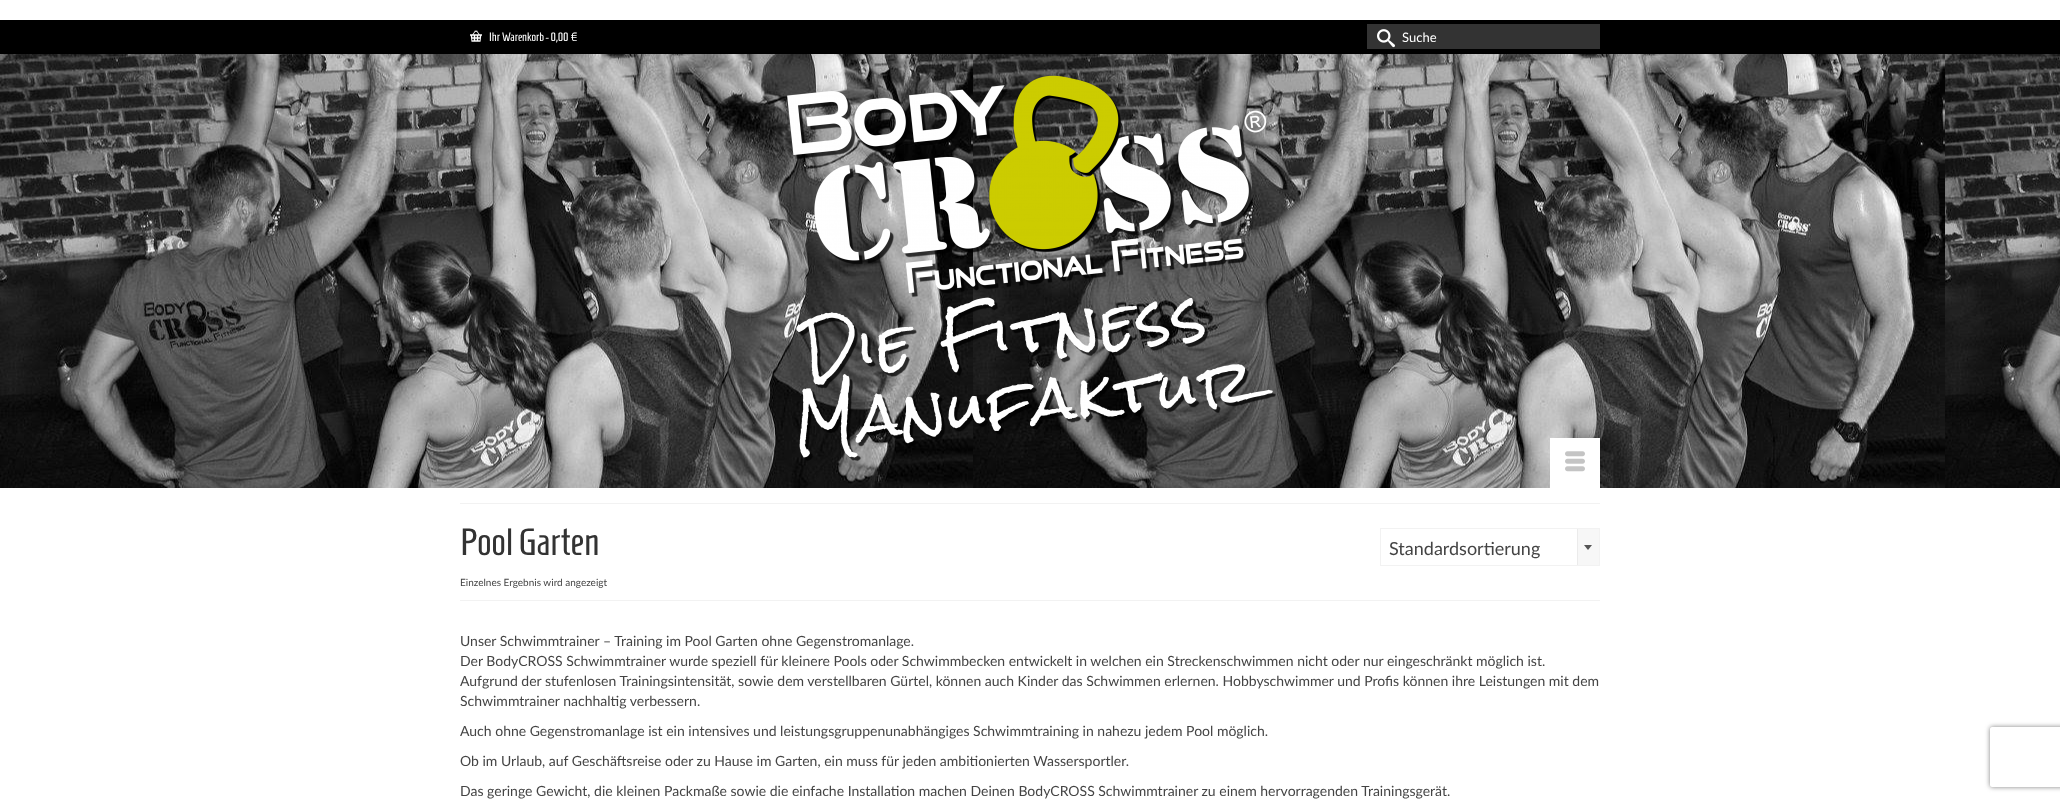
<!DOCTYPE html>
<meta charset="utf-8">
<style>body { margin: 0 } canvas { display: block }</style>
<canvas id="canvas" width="2060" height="801"></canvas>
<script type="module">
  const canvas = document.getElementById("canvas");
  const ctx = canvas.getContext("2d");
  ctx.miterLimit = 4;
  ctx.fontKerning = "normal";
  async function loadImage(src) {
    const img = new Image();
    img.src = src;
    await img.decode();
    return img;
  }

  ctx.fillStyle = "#ffffff";
  ctx.fillRect(0, 0, 2060, 801);
  ctx.drawImage(await loadImage("img1.png"), 0, 54, 2060, 434);
  ctx.fillStyle = "#000000";
  ctx.fillRect(0, 20, 2060, 34);
  ctx.drawImage(await loadImage("img2.png"), 470, 30, 12, 12);
  ctx.font = "12px Homenaje";
  ctx.fillStyle = "#ffffff";
  ctx.fillText("Ihr Warenkorb - 0,00 €", 489, 41);
  ctx.fillStyle = "#333333";
  ctx.fillRect(1367, 24, 233, 25);
  ctx.drawImage(await loadImage("img3.png"), 1377, 29, 18, 19);
  ctx.font = "13px Lato";
  ctx.fillStyle = "#ffffff";
  ctx.fillText("Suche", 1402, 42);
  ctx.drawImage(await loadImage("img4.png"), 787, 75, 489, 387);
  ctx.fillRect(1550, 438, 50, 50);
  ctx.drawImage(await loadImage("img5.png"), 1565, 451, 20, 21);
  ctx.fillStyle = "#f2f2f2";
  ctx.fillRect(460, 503, 1140, 1);
  ctx.fillRect(460, 600, 1140, 1);
  ctx.font = "38px Homenaje";
  ctx.fillStyle = "#333333";
  ctx.fillText("Pool Garten", 460, 555);
  ctx.font = "10px Lato";
  ctx.fillStyle = "#444444";
  ctx.fillText("Einzelnes Ergebnis wird angezeigt", 460, 586);
  ctx.strokeStyle = "#f2f2f2";
  ctx.strokeRect(1380.5, 528.5, 219, 37);
  ctx.font = "18px Lato";
  ctx.fillText("Standardsortierung", 1389, 555);
  ctx.fillStyle = "#f7f7f7";
  ctx.fillRect(1578, 529, 21, 36);
  ctx.fillStyle = "#ebebeb";
  ctx.fillRect(1577, 529, 1, 36);
  ctx.fillStyle = "#555555";
  ctx.beginPath();
  ctx.moveTo(1584, 545);
  ctx.lineTo(1592, 545);
  ctx.lineTo(1588, 550);
  ctx.closePath();
  ctx.fill();
  ctx.font = "14px Lato";
  ctx.fillStyle = "#444444";
  ctx.fillText("Unser Schwimmtrainer – Training im Pool Garten ohne Gegenstromanlage.", 460, 646);
  ctx.fillText("Der BodyCROSS Schwimmtrainer wurde speziell für kleinere Pools oder Schwimmbecken entwickelt in welchen ein Streckenschwimmen nicht oder nur eingeschränkt möglich ist.", 460, 666);
  ctx.fillText("Aufgrund der stufenlosen Trainingsintensität, sowie dem verstellbaren Gürtel, können auch Kinder das Schwimmen erlernen. Hobbyschwimmer und Profis können ihre Leistungen mit dem", 460, 686);
  ctx.fillText("Schwimmtrainer nachhaltig verbessern.", 460, 706);
  ctx.fillText("Auch ohne Gegenstromanlage ist ein intensives und leistungsgruppenunabhängiges Schwimmtraining in nahezu jedem Pool möglich.", 460, 736);
  ctx.fillText("Ob im Urlaub, auf Geschäftsreise oder zu Hause im Garten, ein muss für jeden ambitionierten Wassersportler.", 460, 766);
  ctx.fillText("Das geringe Gewicht, die kleinen Packmaße sowie die einfache Installation machen Deinen BodyCROSS Schwimmtrainer zu einem hervorragenden Trainingsgerät.", 460, 796);
  ctx.save();
  ctx.beginPath();
  ctx.moveTo(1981, 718);
  ctx.lineTo(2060, 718);
  ctx.lineTo(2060, 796);
  ctx.lineTo(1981, 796);
  ctx.closePath();
  ctx.moveTo(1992, 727);
  ctx.lineTo(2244, 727);
  ctx.bezierCurveTo(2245, 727, 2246, 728, 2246, 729);
  ctx.lineTo(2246, 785);
  ctx.bezierCurveTo(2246, 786, 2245, 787, 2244, 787);
  ctx.lineTo(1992, 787);
  ctx.bezierCurveTo(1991, 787, 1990, 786, 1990, 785);
  ctx.lineTo(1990, 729);
  ctx.bezierCurveTo(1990, 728, 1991, 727, 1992, 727);
  ctx.closePath();
  ctx.clip("evenodd");
  ctx.fillStyle = "#808080";
  ctx.filter = "blur(2.5px)";
  ctx.beginPath();
  ctx.roundRect(1990, 727, 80, 60, 2);
  ctx.fill();
  ctx.filter = "none";
  ctx.restore();
</script>
